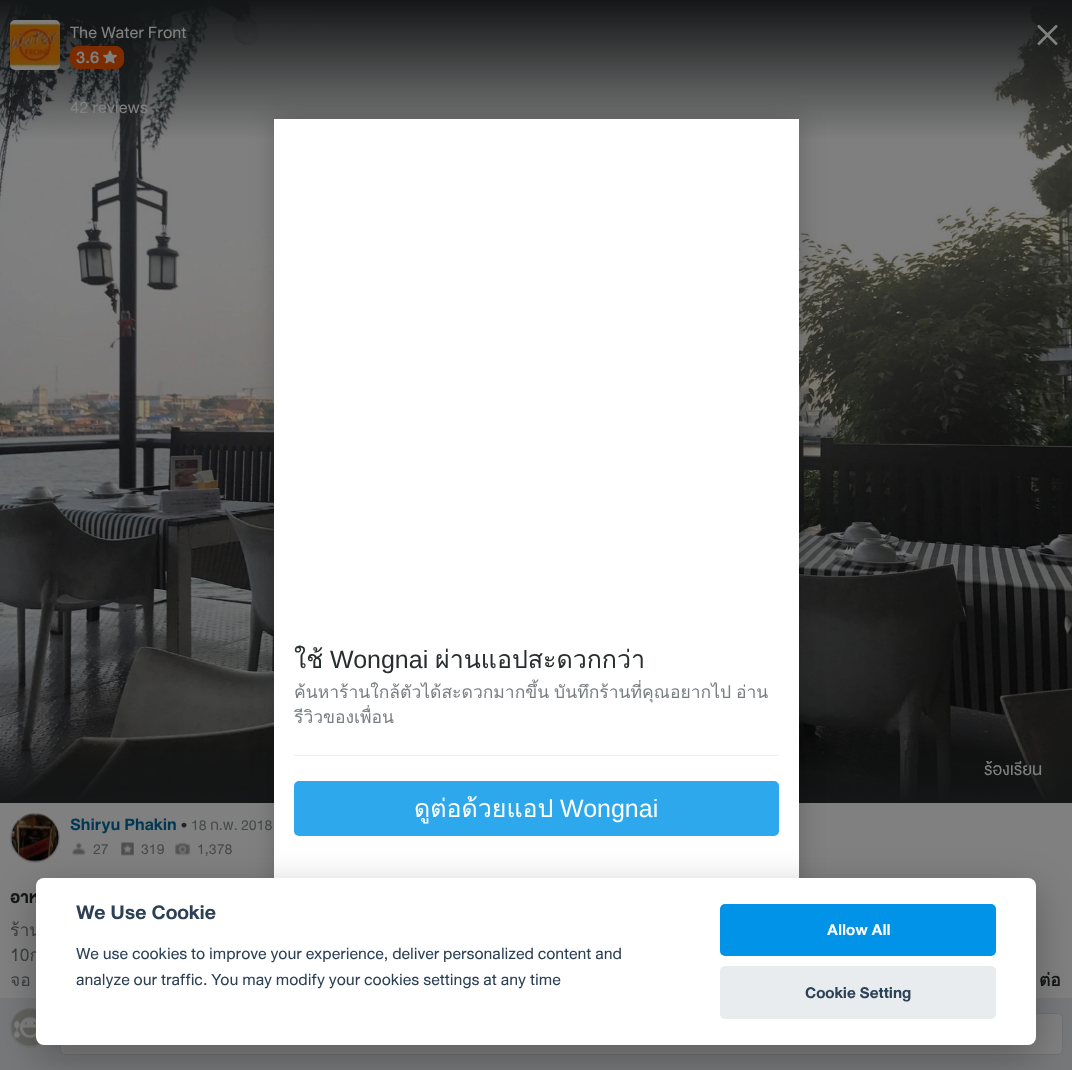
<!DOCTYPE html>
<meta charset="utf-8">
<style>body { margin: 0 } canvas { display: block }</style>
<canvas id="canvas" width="1072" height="1070"></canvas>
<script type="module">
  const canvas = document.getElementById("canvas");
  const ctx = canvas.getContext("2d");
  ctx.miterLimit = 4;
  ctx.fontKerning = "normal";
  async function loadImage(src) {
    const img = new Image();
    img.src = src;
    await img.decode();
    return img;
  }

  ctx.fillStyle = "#808080";
  ctx.fillRect(0, 0, 1072, 1070);
  ctx.drawImage(await loadImage("img1.png"), 0, 0, 1072, 803);
  ctx.drawImage(await loadImage("img2.png"), 10, 20, 50, 50);
  ctx.font = "17.5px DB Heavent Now";
  ctx.fillText("The Water Front", 70, 38);
  ctx.fillStyle = "#7d2c00";
  ctx.beginPath();
  ctx.roundRect(70.5, 46.5, 53, 22, 7.5);
  ctx.fill();
  ctx.strokeStyle = "#7d2c00";
  ctx.stroke();
  ctx.font = "500 17.5px DB Heavent Now";
  ctx.fillStyle = "#808080";
  ctx.fillText("3.6", 76, 63);
  ctx.drawImage(await loadImage("img3.png"), 103, 50, 14, 14);
  ctx.font = "17.5px DB Heavent Now";
  ctx.fillText("42 reviews", 70, 113);
  ctx.fillText("ร้องเรียน", 984, 775);
  ctx.drawImage(await loadImage("img4.png"), 1037, 25, 21, 20);
  ctx.fillStyle = "#777879";
  ctx.beginPath();
  ctx.arc(35, 838, 24.5, 0, Math.PI * 2);
  ctx.fill();
  ctx.strokeStyle = "#6f7172";
  ctx.stroke();
  ctx.drawImage(await loadImage("img5.png"), 11, 813, 48, 49);
  ctx.font = "bold 17.5px DB Heavent Now";
  ctx.fillStyle = "#003854";
  ctx.fillText("Shiryu Phakin", 70, 830);
  ctx.font = "17.5px DB Heavent Now";
  ctx.fillStyle = "#1f2123";
  ctx.fillText("•", 181, 830);
  ctx.font = "15px DB Heavent Now";
  ctx.fillStyle = "#464a4b";
  ctx.fillText("18 ก.พ. 2018", 191, 830);
  ctx.drawImage(await loadImage("img6.png"), 72, 842, 14, 14);
  ctx.fillText("27", 93, 854);
  ctx.drawImage(await loadImage("img7.png"), 121, 842, 13, 14);
  ctx.fillText("319", 141, 854);
  ctx.drawImage(await loadImage("img8.png"), 175, 842, 16, 14);
  ctx.fillText("1,378", 197, 854);
  ctx.font = "bold 17.5px DB Heavent Now";
  ctx.fillStyle = "#141717";
  ctx.fillText("อาห", 10, 903);
  ctx.wordSpacing = "4px";
  ctx.font = "17.5px Loma";
  ctx.fillStyle = "#3c4042";
  ctx.fillText("ร้าน", 10, 936);
  ctx.wordSpacing = "0px";
  ctx.fillText("10ก", 10, 961);
  ctx.wordSpacing = "1px";
  ctx.fillText("จอ", 10, 986);
  ctx.wordSpacing = "0px";
  ctx.font = "bold 17.5px Loma";
  ctx.fillStyle = "#141717";
  ctx.fillText("ต่อ", 1039, 986);
  ctx.fillStyle = "#777879";
  ctx.fillRect(0, 998, 1072, 72);
  ctx.beginPath();
  ctx.arc(30, 1028, 19.5, 0, Math.PI * 2);
  ctx.stroke();
  ctx.drawImage(await loadImage("img9.png"), 11, 1008, 30, 39);
  ctx.fillStyle = "#808080";
  ctx.beginPath();
  ctx.roundRect(60.5, 1013.5, 1002, 41, 4.5);
  ctx.fill();
  ctx.stroke();
  ctx.fillStyle = "rgba(0, 0, 0, 0.2)";
  ctx.filter = "blur(12.5px)";
  ctx.beginPath();
  ctx.rect(275, 120, 525, 834);
  ctx.fill();
  ctx.filter = "none";
  ctx.fillStyle = "#ffffff";
  ctx.fillRect(274, 119, 525, 759);
  ctx.font = "25px Loma";
  ctx.fillStyle = "#282d2e";
  ctx.fillText("ใช้", 294, 668);
  ctx.font = "25px Liberation Sans";
  ctx.fillText("Wongnai", 330, 668);
  ctx.font = "25px Loma";
  ctx.fillText("ผ่านแอปสะดวกกว่า", 435, 668);
  ctx.wordSpacing = "-1px";
  ctx.font = "17.5px Loma";
  ctx.fillStyle = "#787f83";
  ctx.fillText("ค้นหาร้านใกล้ตัวได้สะดวกมากขึ้น บันทึกร้านที่คุณอยากไป อ่าน", 294, 698);
  ctx.wordSpacing = "0px";
  ctx.fillText("รีวิวของเพื่อน", 294, 723);
  ctx.fillStyle = "#edf0f2";
  ctx.fillRect(294, 755, 485, 1);
  ctx.fillStyle = "#2da8ed";
  ctx.beginPath();
  ctx.roundRect(294, 781, 485, 55, 5);
  ctx.fill();
  ctx.font = "25px Loma";
  ctx.fillStyle = "#ffffff";
  ctx.fillText("ดูต่อด้วยแอป", 414, 817);
  ctx.font = "25px Liberation Sans";
  ctx.fillText("Wongnai", 560, 817);
  ctx.fillStyle = "rgba(2, 2, 3, 0.28)";
  ctx.filter = "blur(19px)";
  ctx.beginPath();
  ctx.roundRect(36, 890, 1000, 168, 8);
  ctx.fill();
  ctx.filter = "none";
  ctx.fillStyle = "#ffffff";
  ctx.beginPath();
  ctx.roundRect(36, 878, 1000, 167, 8);
  ctx.fill();
  ctx.font = "bold 21px DB Heavent Now";
  ctx.fillStyle = "#2d4156";
  ctx.fillText("We Use Cookie", 76, 919);
  ctx.font = "17px DB Heavent Now";
  ctx.fillText("We use cookies to improve your experience, deliver personalized content and", 76, 959);
  ctx.fillText("analyze our traffic. You may modify your cookies settings at any time", 76, 985);
  ctx.fillStyle = "#0093e8";
  ctx.beginPath();
  ctx.roundRect(720, 904, 276, 52, 5);
  ctx.fill();
  ctx.font = "bold 16.5px DB Heavent Now";
  ctx.fillStyle = "#ffffff";
  ctx.fillText("Allow All", 827, 935);
  ctx.fillStyle = "#e9ecee";
  ctx.beginPath();
  ctx.roundRect(720, 966, 276, 53, 5);
  ctx.fill();
  ctx.fillStyle = "#2d4156";
  ctx.fillText("Cookie Setting", 805, 998);
</script>
